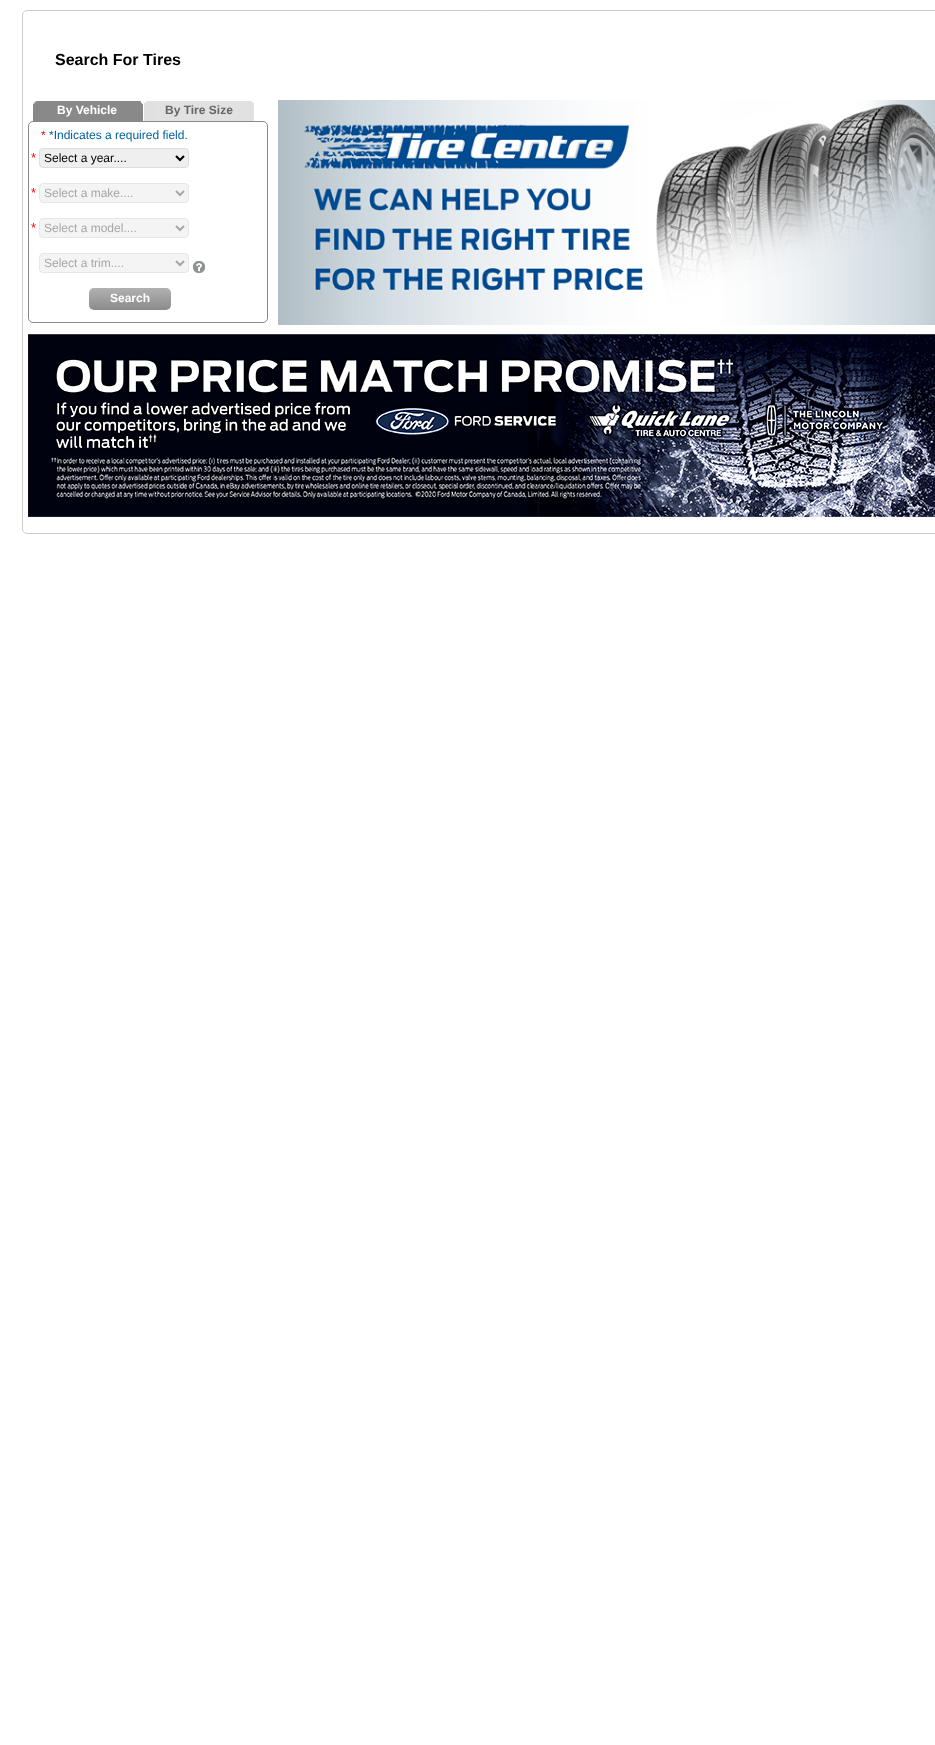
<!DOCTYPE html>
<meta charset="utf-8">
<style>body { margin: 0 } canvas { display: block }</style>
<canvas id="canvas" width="935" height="1745"></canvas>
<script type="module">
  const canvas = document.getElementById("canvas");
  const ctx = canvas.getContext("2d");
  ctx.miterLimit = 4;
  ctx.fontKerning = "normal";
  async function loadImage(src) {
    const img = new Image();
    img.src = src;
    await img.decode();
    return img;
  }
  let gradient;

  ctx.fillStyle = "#ffffff";
  ctx.fillRect(0, 0, 935, 1745);
  ctx.beginPath();
  ctx.roundRect(22.5, 10.5, 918, 523, 4.5);
  ctx.strokeStyle = "#cdcdcd";
  ctx.stroke();
  ctx.font = "bold 16px Liberation Sans";
  ctx.fillStyle = "#000000";
  ctx.fillText("Search For Tires", 55, 65);
  ctx.drawImage(await loadImage("img1.png"), 133, 101, 10, 20);
  ctx.drawImage(await loadImage("img2.png"), 33, 101, 11, 20);
  ctx.fillStyle = "#898989";
  ctx.fillRect(44, 101, 89, 20);
  ctx.font = "bold 12px Liberation Sans";
  ctx.fillStyle = "#ffffff";
  ctx.fillText("By Vehicle", 57, 114);
  ctx.drawImage(await loadImage("img3.png"), 244, 101, 10, 20);
  ctx.drawImage(await loadImage("img4.png"), 144, 101, 11, 20);
  ctx.fillStyle = "#e1e1e1";
  ctx.fillRect(155, 101, 89, 20);
  ctx.fillStyle = "#666666";
  ctx.fillText("By Tire Size", 165, 114);
  ctx.beginPath();
  ctx.roundRect(28.5, 121.5, 239, 201, 4.5);
  ctx.strokeStyle = "#8a8a8a";
  ctx.stroke();
  ctx.font = "12px Liberation Sans";
  ctx.fillStyle = "#ff0000";
  ctx.fillText("*", 41, 139);
  ctx.fillStyle = "#0060a0";
  ctx.fillText("*Indicates a required field.", 49, 139);
  ctx.font = "13px Liberation Sans";
  ctx.fillStyle = "#ff0000";
  ctx.fillText("*", 31, 162);
  ctx.fillStyle = "#efefef";
  ctx.beginPath();
  ctx.roundRect(39.5, 148.5, 149, 19, 3.5);
  ctx.fill();
  ctx.strokeStyle = "#dddddd";
  ctx.stroke();
  ctx.beginPath();
  ctx.moveTo(176, 156);
  ctx.lineTo(180, 160);
  ctx.lineTo(184, 156);
  ctx.strokeStyle = "#000000";
  ctx.lineWidth = 2;
  ctx.stroke();
  ctx.font = "12px Liberation Sans";
  ctx.fillStyle = "#000000";
  ctx.fillText("Select a year....", 44, 162);
  ctx.font = "13px Liberation Sans";
  ctx.fillStyle = "#ff0000";
  ctx.fillText("*", 31, 197);
  ctx.fillStyle = "#f4f4f4";
  ctx.beginPath();
  ctx.roundRect(39.5, 183.5, 149, 19, 3.5);
  ctx.fill();
  ctx.strokeStyle = "#e7e7e7";
  ctx.lineWidth = 1;
  ctx.stroke();
  ctx.beginPath();
  ctx.moveTo(176, 191);
  ctx.lineTo(180, 195);
  ctx.lineTo(184, 191);
  ctx.strokeStyle = "#a6a6a6";
  ctx.lineWidth = 2;
  ctx.stroke();
  ctx.font = "12px Liberation Sans";
  ctx.fillStyle = "#a6a6a6";
  ctx.fillText("Select a make....", 44, 197);
  ctx.font = "13px Liberation Sans";
  ctx.fillStyle = "#ff0000";
  ctx.fillText("*", 31, 232);
  ctx.fillStyle = "#f4f4f4";
  ctx.beginPath();
  ctx.roundRect(39.5, 218.5, 149, 19, 3.5);
  ctx.fill();
  ctx.strokeStyle = "#e7e7e7";
  ctx.lineWidth = 1;
  ctx.stroke();
  ctx.beginPath();
  ctx.moveTo(176, 226);
  ctx.lineTo(180, 230);
  ctx.lineTo(184, 226);
  ctx.strokeStyle = "#a6a6a6";
  ctx.lineWidth = 2;
  ctx.stroke();
  ctx.font = "12px Liberation Sans";
  ctx.fillStyle = "#a6a6a6";
  ctx.fillText("Select a model....", 44, 232);
  ctx.fillStyle = "#f4f4f4";
  ctx.beginPath();
  ctx.roundRect(39.5, 253.5, 149, 19, 3.5);
  ctx.fill();
  ctx.strokeStyle = "#e7e7e7";
  ctx.lineWidth = 1;
  ctx.stroke();
  ctx.beginPath();
  ctx.moveTo(176, 261);
  ctx.lineTo(180, 265);
  ctx.lineTo(184, 261);
  ctx.strokeStyle = "#a6a6a6";
  ctx.lineWidth = 2;
  ctx.stroke();
  ctx.fillStyle = "#a6a6a6";
  ctx.fillText("Select a trim....", 44, 267);
  ctx.drawImage(await loadImage("img5.png"), 193, 261, 12, 12);
  gradient = ctx.createLinearGradient(89, 288, 89, 310);
  gradient.addColorStop(0, "#b1b1b1");
  gradient.addColorStop(1, "#8b8b8b");
  ctx.fillStyle = gradient;
  ctx.beginPath();
  ctx.roundRect(89, 288, 82, 22, 5);
  ctx.fill();
  ctx.font = "bold 12px Liberation Sans";
  ctx.fillStyle = "#ffffff";
  ctx.fillText("Search", 110, 302);
  ctx.drawImage(await loadImage("img6.png"), 278, 100, 657, 225);
  ctx.drawImage(await loadImage("img7.png"), 28, 334, 907, 183);
</script>
